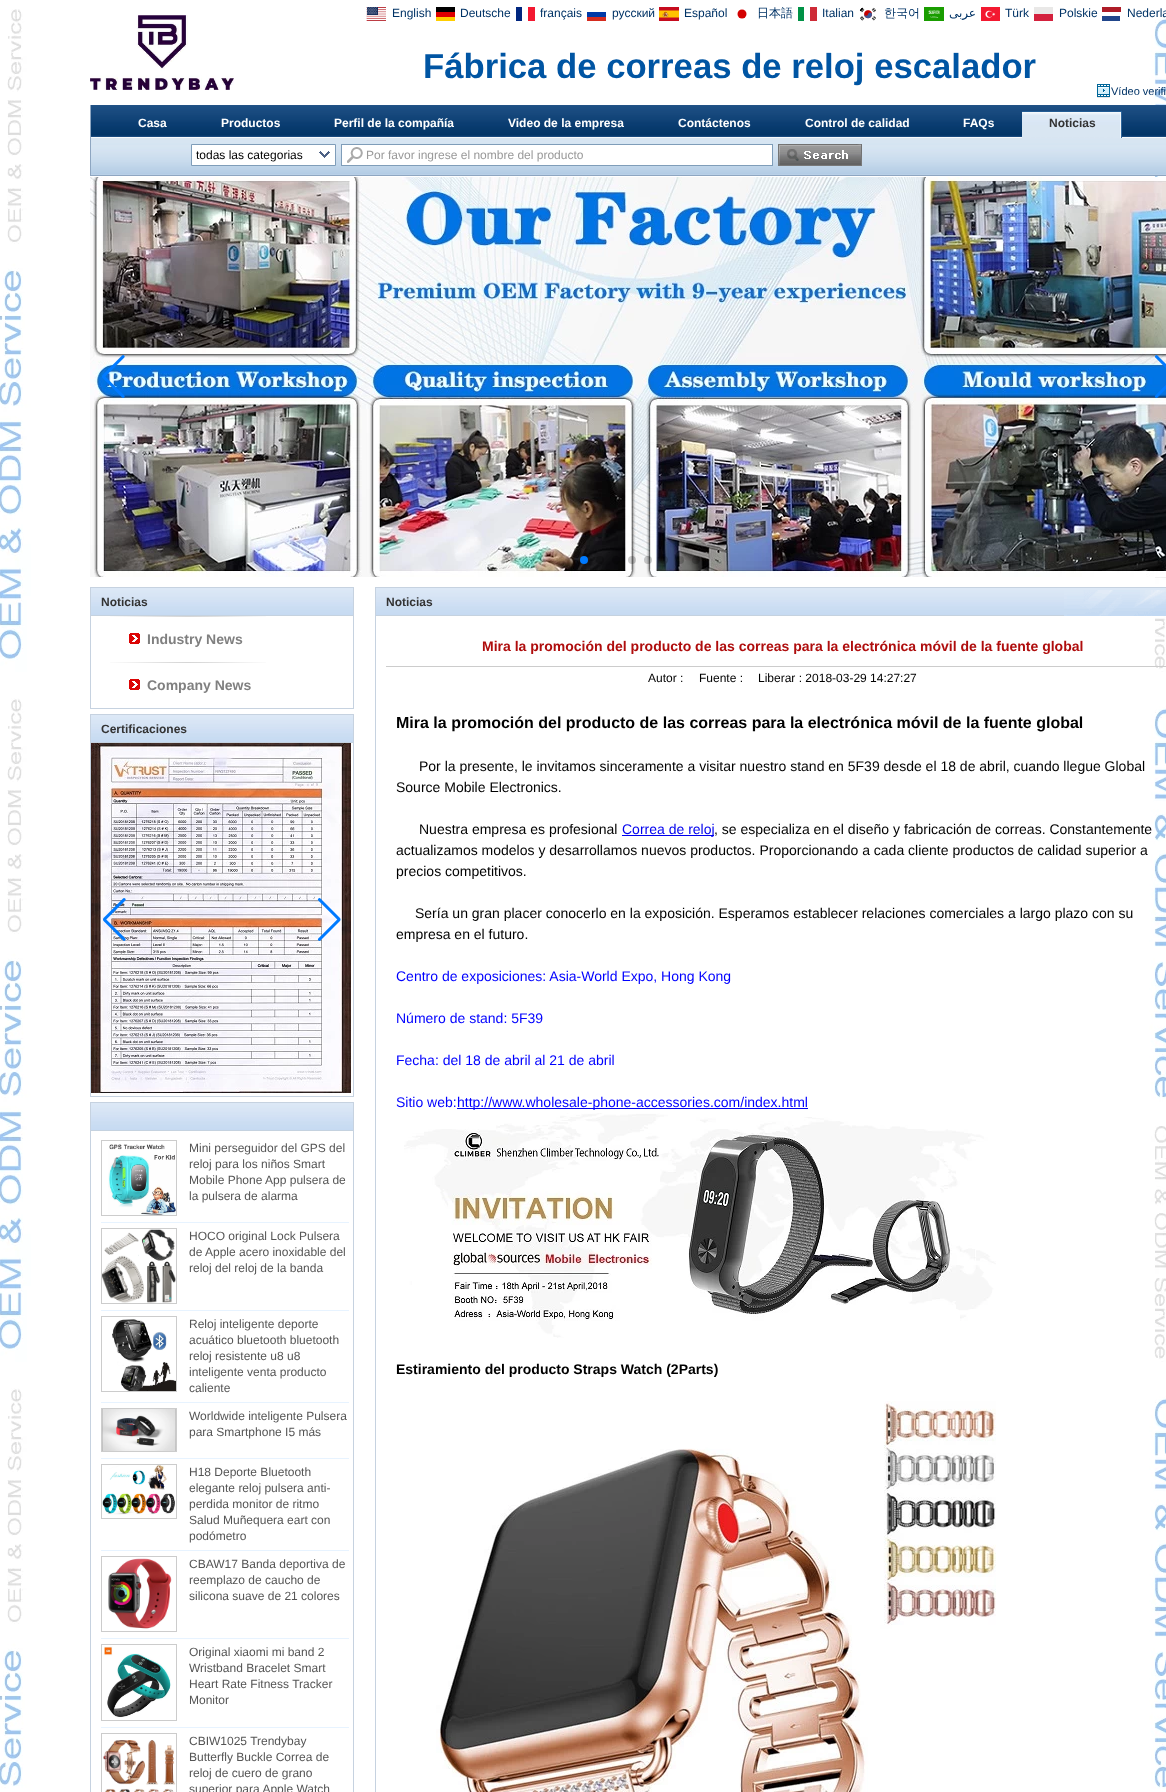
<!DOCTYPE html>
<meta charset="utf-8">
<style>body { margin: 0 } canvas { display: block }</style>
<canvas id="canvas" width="1166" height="1792"></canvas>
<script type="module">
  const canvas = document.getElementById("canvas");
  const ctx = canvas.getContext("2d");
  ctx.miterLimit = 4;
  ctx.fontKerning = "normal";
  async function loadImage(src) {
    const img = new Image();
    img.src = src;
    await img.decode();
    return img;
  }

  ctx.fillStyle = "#ffffff";
  ctx.fillRect(0, 0, 1166, 1792);
  ctx.drawImage(await loadImage("img1.png"), 0, 9, 1166, 1780);
  ctx.drawImage(await loadImage("img2.png"), 366, 7, 20, 14);
  ctx.font = "12px Liberation Sans";
  ctx.fillStyle = "#003366";
  ctx.fillText("English", 392, 17);
  ctx.fillText("Deutsche", 460, 17);
  ctx.fillStyle = "#ffce00";
  ctx.fillRect(436, 17, 19, 4);
  ctx.fillStyle = "#000000";
  ctx.fillRect(436, 7, 19, 5);
  ctx.fillStyle = "#dd0000";
  ctx.fillRect(436, 12, 19, 5);
  ctx.fillStyle = "#003366";
  ctx.fillText("français", 540, 17);
  ctx.fillStyle = "#00267f";
  ctx.fillRect(516, 7, 6, 14);
  ctx.fillStyle = "#f31830";
  ctx.fillRect(528, 7, 7, 14);
  ctx.fillStyle = "#003366";
  ctx.fillText("русский", 612, 17);
  ctx.fillStyle = "#0039a6";
  ctx.fillRect(587, 12, 19, 5);
  ctx.fillStyle = "#d52b1e";
  ctx.fillRect(587, 17, 19, 4);
  ctx.drawImage(await loadImage("img3.png"), 659, 7, 20, 14);
  ctx.fillStyle = "#003366";
  ctx.fillText("Español", 684, 17);
  ctx.font = "500 12px WenQuanYi Zen Hei";
  ctx.fillText("日本語", 757, 17);
  ctx.fillStyle = "#d30000";
  ctx.beginPath();
  ctx.arc(742, 14, 4.5, 0, Math.PI * 2);
  ctx.fill();
  ctx.font = "12px Liberation Sans";
  ctx.fillStyle = "#003366";
  ctx.fillText("Italian", 822, 17);
  ctx.fillStyle = "#009246";
  ctx.fillRect(798, 7, 6, 14);
  ctx.fillStyle = "#ce2b37";
  ctx.fillRect(810, 7, 7, 14);
  ctx.drawImage(await loadImage("img4.png"), 859, 7, 17, 14);
  ctx.font = "500 12px WenQuanYi Zen Hei";
  ctx.fillStyle = "#003366";
  ctx.fillText("한국어", 884, 17);
  ctx.drawImage(await loadImage("img5.png"), 924, 7, 20, 14);
  ctx.direction = "rtl";
  ctx.font = "12px DejaVu Sans";
  ctx.fillText("عربى", 976, 17);
  ctx.drawImage(await loadImage("img6.png"), 981, 7, 19, 14);
  ctx.direction = "ltr";
  ctx.font = "12px Liberation Sans";
  ctx.fillText("Türk", 1005, 17);
  ctx.fillText("Polskie", 1059, 17);
  ctx.fillStyle = "#e9e8e7";
  ctx.fillRect(1034, 7, 19, 7);
  ctx.fillStyle = "#d4213d";
  ctx.fillRect(1034, 14, 19, 7);
  ctx.fillStyle = "#003366";
  ctx.fillText("Nederla", 1127, 17);
  ctx.fillStyle = "#21468b";
  ctx.fillRect(1102, 16, 18, 5);
  ctx.fillStyle = "#ae1c28";
  ctx.fillRect(1102, 7, 19, 5);
  ctx.font = "bold 34.7px Liberation Sans";
  ctx.fillStyle = "#0055a3";
  ctx.fillText("Fábrica de correas de reloj escalador", 423, 78);
  ctx.drawImage(await loadImage("img7.png"), 90, 15, 144, 75);
  ctx.drawImage(await loadImage("img8.png"), 1097, 84, 13, 14);
  ctx.font = "11px Liberation Sans";
  ctx.fillStyle = "#003366";
  ctx.fillText("Vídeo verifi", 1111, 95);
  ctx.drawImage(await loadImage("img9.png"), 91, 105, 1075, 70);
  ctx.fillStyle = "#8ea6c1";
  ctx.fillRect(90, 175, 1076, 1);
  ctx.fillRect(90, 105, 1, 71);
  ctx.font = "bold 12px Liberation Sans";
  ctx.fillStyle = "#ffffff";
  ctx.fillText("Casa", 138, 127);
  ctx.fillText("Productos", 221, 127);
  ctx.fillText("Perfil de la compañía", 334, 127);
  ctx.fillText("Video de la empresa", 508, 127);
  ctx.fillText("Contáctenos", 678, 127);
  ctx.fillText("Control de calidad", 805, 127);
  ctx.fillText("FAQs", 963, 127);
  ctx.drawImage(await loadImage("img10.png"), 1022, 111, 100, 27);
  ctx.fillStyle = "#333333";
  ctx.fillText("Noticias", 1049, 127);
  ctx.fillStyle = "#ffffff";
  ctx.beginPath();
  ctx.rect(191.5, 144.5, 144, 21);
  ctx.fill();
  ctx.strokeStyle = "#7f9db9";
  ctx.stroke();
  ctx.drawImage(await loadImage("img11.png"), 319, 151, 11, 7);
  ctx.font = "12px Liberation Sans";
  ctx.fillStyle = "#000000";
  ctx.fillText("todas las categorias", 196, 159);
  ctx.fillStyle = "#ffffff";
  ctx.fillRect(342, 145, 430, 20);
  ctx.drawImage(await loadImage("img12.png"), 347, 147, 16, 16);
  ctx.strokeRect(341.5, 144.5, 431, 21);
  ctx.fillStyle = "#999999";
  ctx.fillText("Por favor ingrese el nombre del producto", 366, 159);
  ctx.drawImage(await loadImage("img13.png"), 778, 144, 84, 22);
  ctx.drawImage(await loadImage("img14.png"), 90, 177, 1076, 400);
  ctx.drawImage(await loadImage("img15.png"), 102, 355, 23, 43);
  ctx.drawImage(await loadImage("img16.png"), 1154, 355, 12, 43);
  ctx.fillStyle = "#007aff";
  ctx.beginPath();
  ctx.arc(584, 560, 4, 0, Math.PI * 2);
  ctx.fill();
  ctx.fillStyle = "rgba(0, 0, 0, 0.2)";
  ctx.beginPath();
  ctx.arc(600, 560, 4, 0, Math.PI * 2);
  ctx.fill();
  ctx.beginPath();
  ctx.arc(616, 560, 4, 0, Math.PI * 2);
  ctx.fill();
  ctx.beginPath();
  ctx.arc(632, 560, 4, 0, Math.PI * 2);
  ctx.fill();
  ctx.beginPath();
  ctx.arc(648, 560, 4, 0, Math.PI * 2);
  ctx.fill();
  ctx.beginPath();
  ctx.arc(664, 560, 4, 0, Math.PI * 2);
  ctx.fill();
  ctx.beginPath();
  ctx.arc(680, 560, 4, 0, Math.PI * 2);
  ctx.fill();
  ctx.beginPath();
  ctx.arc(696, 560, 4, 0, Math.PI * 2);
  ctx.fill();
  ctx.drawImage(await loadImage("img17.png"), 91, 588, 262, 28);
  ctx.strokeStyle = "#c6d2e0";
  ctx.strokeRect(90.5, 587.5, 263, 121);
  ctx.font = "bold 12px Liberation Sans";
  ctx.fillStyle = "#333333";
  ctx.fillText("Noticias", 101, 606);
  ctx.drawImage(await loadImage("img18.png"), 110, 616, 156, 1);
  ctx.drawImage(await loadImage("img19.png"), 129, 633, 11, 11);
  ctx.font = "bold 14px Liberation Sans";
  ctx.fillStyle = "#808080";
  ctx.fillText("Industry News", 147, 644);
  ctx.drawImage(await loadImage("img18.png"), 110, 662, 156, 1);
  ctx.drawImage(await loadImage("img19.png"), 129, 679, 11, 11);
  ctx.fillText("Company News", 147, 690);
  ctx.drawImage(await loadImage("img17.png"), 91, 715, 262, 28);
  ctx.strokeRect(90.5, 714.5, 263, 382);
  ctx.font = "bold 12px Liberation Sans";
  ctx.fillStyle = "#333333";
  ctx.fillText("Certificaciones", 101, 733);
  ctx.drawImage(await loadImage("img20.png"), 91, 743, 260, 350);
  ctx.drawImage(await loadImage("img21.png"), 103, 898, 23, 43);
  ctx.drawImage(await loadImage("img22.png"), 317, 898, 24, 43);
  ctx.drawImage(await loadImage("img17.png"), 91, 1103, 262, 28);
  ctx.strokeRect(90.5, 1102.5, 263, 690);
  ctx.fillStyle = "#e7f3ff";
  ctx.fillRect(101, 1222, 248, 1);
  ctx.strokeStyle = "#cccccc";
  ctx.strokeRect(101.5, 1140.5, 75, 75);
  ctx.drawImage(await loadImage("img23.png"), 108, 1144, 68, 71);
  ctx.font = "12px Liberation Sans";
  ctx.fillStyle = "#555555";
  ctx.fillText("Mini perseguidor del GPS del", 189, 1152);
  ctx.fillText("reloj para los niños Smart", 189, 1168);
  ctx.fillText("Mobile Phone App pulsera de", 189, 1184);
  ctx.fillText("la pulsera de alarma", 189, 1200);
  ctx.fillStyle = "#e7f3ff";
  ctx.fillRect(101, 1310, 248, 1);
  ctx.strokeRect(101.5, 1228.5, 75, 75);
  ctx.drawImage(await loadImage("img24.png"), 102, 1229, 74, 74);
  ctx.fillStyle = "#555555";
  ctx.fillText("HOCO original Lock Pulsera", 189, 1240);
  ctx.fillText("de Apple acero inoxidable del", 189, 1256);
  ctx.fillText("reloj del reloj de la banda", 189, 1272);
  ctx.fillStyle = "#e7f3ff";
  ctx.fillRect(101, 1402, 248, 1);
  ctx.strokeRect(101.5, 1316.5, 75, 75);
  ctx.drawImage(await loadImage("img25.png"), 112, 1319, 64, 72);
  ctx.fillStyle = "#555555";
  ctx.fillText("Reloj inteligente deporte", 189, 1328);
  ctx.fillText("acuático bluetooth bluetooth", 189, 1344);
  ctx.fillText("reloj resistente u8 u8", 189, 1360);
  ctx.fillText("inteligente venta producto", 189, 1376);
  ctx.fillText("caliente", 189, 1392);
  ctx.fillStyle = "#e7f3ff";
  ctx.fillRect(101, 1458, 248, 1);
  ctx.strokeRect(101.5, 1408.5, 75, 43);
  ctx.drawImage(await loadImage("img26.png"), 102, 1409, 74, 42);
  ctx.fillStyle = "#555555";
  ctx.fillText("Worldwide inteligente Pulsera", 189, 1420);
  ctx.fillText("para Smartphone I5 más", 189, 1436);
  ctx.fillStyle = "#e7f3ff";
  ctx.fillRect(101, 1550, 248, 1);
  ctx.strokeRect(101.5, 1464.5, 75, 54);
  ctx.drawImage(await loadImage("img27.png"), 102, 1465, 73, 50);
  ctx.fillStyle = "#555555";
  ctx.fillText("H18 Deporte Bluetooth", 189, 1476);
  ctx.fillText("elegante reloj pulsera anti-", 189, 1492);
  ctx.fillText("perdida monitor de ritmo", 189, 1508);
  ctx.fillText("Salud Muñequera eart con", 189, 1524);
  ctx.fillText("podómetro", 189, 1540);
  ctx.fillStyle = "#e7f3ff";
  ctx.fillRect(101, 1638, 248, 1);
  ctx.strokeRect(101.5, 1556.5, 75, 75);
  ctx.drawImage(await loadImage("img28.png"), 108, 1558, 64, 71);
  ctx.fillStyle = "#555555";
  ctx.fillText("CBAW17 Banda deportiva de", 189, 1568);
  ctx.fillText("reemplazo de caucho de", 189, 1584);
  ctx.fillText("silicona suave de 21 colores", 189, 1600);
  ctx.fillStyle = "#e7f3ff";
  ctx.fillRect(101, 1727, 248, 1);
  ctx.strokeRect(101.5, 1644.5, 75, 76);
  ctx.drawImage(await loadImage("img29.png"), 104, 1646, 67, 72);
  ctx.fillStyle = "#555555";
  ctx.fillText("Original xiaomi mi band 2", 189, 1656);
  ctx.fillText("Wristband Bracelet Smart", 189, 1672);
  ctx.fillText("Heart Rate Fitness Tracker", 189, 1688);
  ctx.fillText("Monitor", 189, 1704);
  ctx.strokeRect(101.5, 1733.5, 75, 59);
  ctx.drawImage(await loadImage("img30.png"), 103, 1740, 73, 52);
  ctx.fillText("CBIW1025 Trendybay", 189, 1745);
  ctx.fillText("Butterfly Buckle Correa de", 189, 1761);
  ctx.fillText("reloj de cuero de grano", 189, 1777);
  ctx.fillText("superior para Apple Watch", 189, 1793);
  ctx.drawImage(await loadImage("img31.png"), 376, 588, 790, 28);
  ctx.strokeStyle = "#c6d2e0";
  ctx.strokeRect(375.5, 587.5, 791, 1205);
  ctx.drawImage(await loadImage("img32.png"), 1064, 590, 102, 26);
  ctx.font = "bold 12px Liberation Sans";
  ctx.fillStyle = "#333333";
  ctx.fillText("Noticias", 386, 606);
  ctx.fillStyle = "#cccccc";
  ctx.fillRect(386, 666, 780, 1);
  ctx.font = "bold 14px Liberation Sans";
  ctx.fillStyle = "#af0d0d";
  ctx.fillText("Mira la promoción del producto de las correas para la electrónica móvil de la fuente global", 482, 651);
  ctx.font = "12px Liberation Sans";
  ctx.fillStyle = "#000000";
  ctx.fillText("Autor :", 648, 682);
  ctx.fillText("Fuente :", 699, 682);
  ctx.fillText("Liberar : 2018-03-29 14:27:27", 758, 682);
  ctx.font = "bold 16px Liberation Sans";
  ctx.fillText("Mira la promoción del producto de las correas para la electrónica móvil de la fuente global", 396, 728);
  ctx.font = "14px Liberation Sans";
  ctx.fillText("Por la presente, le invitamos sinceramente a visitar nuestro stand en 5F39 desde el 18 de abril, cuando llegue Global", 419, 771);
  ctx.fillText("Source Mobile Electronics.", 396, 792);
  ctx.fillText("Nuestra empresa es profesional", 419, 834);
  ctx.fillStyle = "#0000ee";
  ctx.fillRect(622, 835, 92, 1);
  ctx.fillText("Correa de reloj", 622, 834);
  ctx.fillStyle = "#000000";
  ctx.fillText(", se especializa en el diseño y fabricación de correas. Constantemente", 714, 834);
  ctx.fillText("actualizamos modelos y desarrollamos nuevos productos. Proporcionando a cada cliente productos de calidad superior a", 396, 855);
  ctx.fillText("precios competitivos.", 396, 876);
  ctx.fillText("Sería un gran placer conocerlo en la exposición. Esperamos establecer relaciones comerciales a largo plazo con su", 415, 918);
  ctx.fillText("empresa en el futuro.", 396, 939);
  ctx.fillStyle = "#0000ff";
  ctx.fillText("Centro de exposiciones: Asia-World Expo, Hong Kong", 396, 981);
  ctx.fillText("Número de stand: 5F39", 396, 1023);
  ctx.fillText("Fecha: del 18 de abril al 21 de abril", 396, 1065);
  ctx.fillText("Sitio web:", 396, 1107);
  ctx.fillStyle = "#0000ee";
  ctx.fillRect(457, 1108, 351, 1);
  ctx.fillStyle = "#0000ff";
  ctx.fillText("http://www.wholesale-phone-accessories.com/index.html", 457, 1107);
  ctx.drawImage(await loadImage("img33.png"), 404, 1113, 592, 225);
  ctx.font = "bold 14px Liberation Sans";
  ctx.fillStyle = "#000000";
  ctx.fillText("Estiramiento del producto Straps Watch (2Parts)", 396, 1374);
  ctx.drawImage(await loadImage("img34.png"), 436, 1401, 560, 391);
</script>
